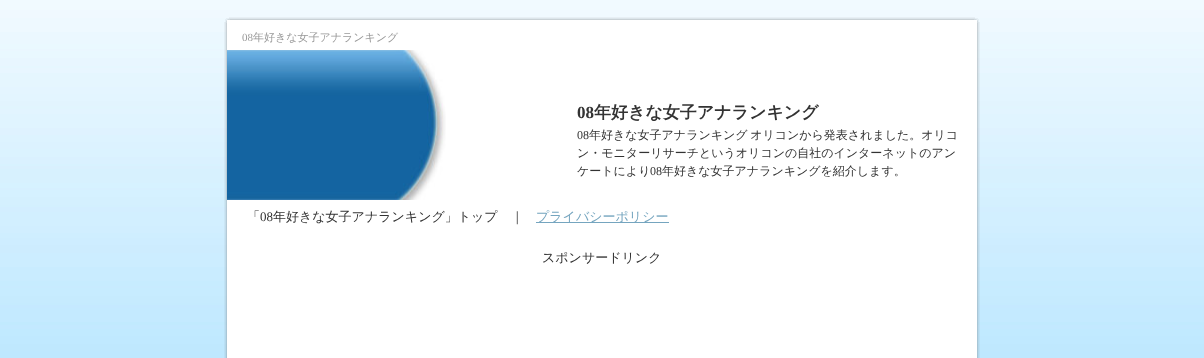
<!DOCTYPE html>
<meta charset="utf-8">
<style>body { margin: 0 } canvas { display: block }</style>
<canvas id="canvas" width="1204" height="358"></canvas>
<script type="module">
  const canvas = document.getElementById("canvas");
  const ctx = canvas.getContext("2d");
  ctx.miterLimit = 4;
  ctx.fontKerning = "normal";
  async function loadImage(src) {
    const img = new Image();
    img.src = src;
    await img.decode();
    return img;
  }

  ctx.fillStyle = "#ffffff";
  ctx.fillRect(0, 0, 1204, 358);
  ctx.drawImage(await loadImage("img1.png"), 0, 0, 1204, 358);
  ctx.drawImage(await loadImage("img2.png"), 224, 17, 756, 33);
  ctx.font = "11px Liberation Serif";
  ctx.fillStyle = "#999999";
  ctx.fillText("08", 242, 41);
  ctx.font = "500 11px WenQuanYi Zen Hei";
  ctx.fillText("年好きな女子アナランキング", 253, 41);
  ctx.drawImage(await loadImage("img3.png"), 224, 50, 756, 308);
  ctx.drawImage(await loadImage("img4.png"), 227, 50, 219, 150);
  ctx.font = "bold 17px Liberation Serif";
  ctx.fillStyle = "#333333";
  ctx.fillText("08", 577, 118);
  ctx.font = "bold 17px WenQuanYi Zen Hei";
  ctx.fillText("年好きな女子アナランキング", 594, 118);
  ctx.font = "12px Liberation Serif";
  ctx.fillText("08", 577, 139);
  ctx.wordSpacing = "-1px";
  ctx.font = "500 12px WenQuanYi Zen Hei";
  ctx.fillText("年好きな女子アナランキング オリコンから発表されました。オリコ", 589, 139);
  ctx.wordSpacing = "0px";
  ctx.fillText("ン・モニターリサーチというオリコンの自社のインターネットのアン", 577, 157);
  ctx.fillText("ケートにより", 577, 175);
  ctx.font = "12px Liberation Serif";
  ctx.fillText("08", 650, 175);
  ctx.font = "500 12px WenQuanYi Zen Hei";
  ctx.fillText("年好きな女子アナランキングを紹介します。", 662, 175);
  ctx.font = "500 13px WenQuanYi Zen Hei";
  ctx.fillText("「", 247, 221);
  ctx.font = "13px Liberation Serif";
  ctx.fillText("08", 260, 221);
  ctx.font = "500 13px WenQuanYi Zen Hei";
  ctx.fillText("年好きな女子アナランキング」トップ　｜", 273, 221);
  ctx.fillStyle = "#75a5bf";
  ctx.fillRect(536, 222, 133, 1);
  ctx.fillText("プライバシーポリシー", 536, 221);
  ctx.fillStyle = "#333333";
  ctx.fillText("スポンサードリンク", 542, 262);
</script>
